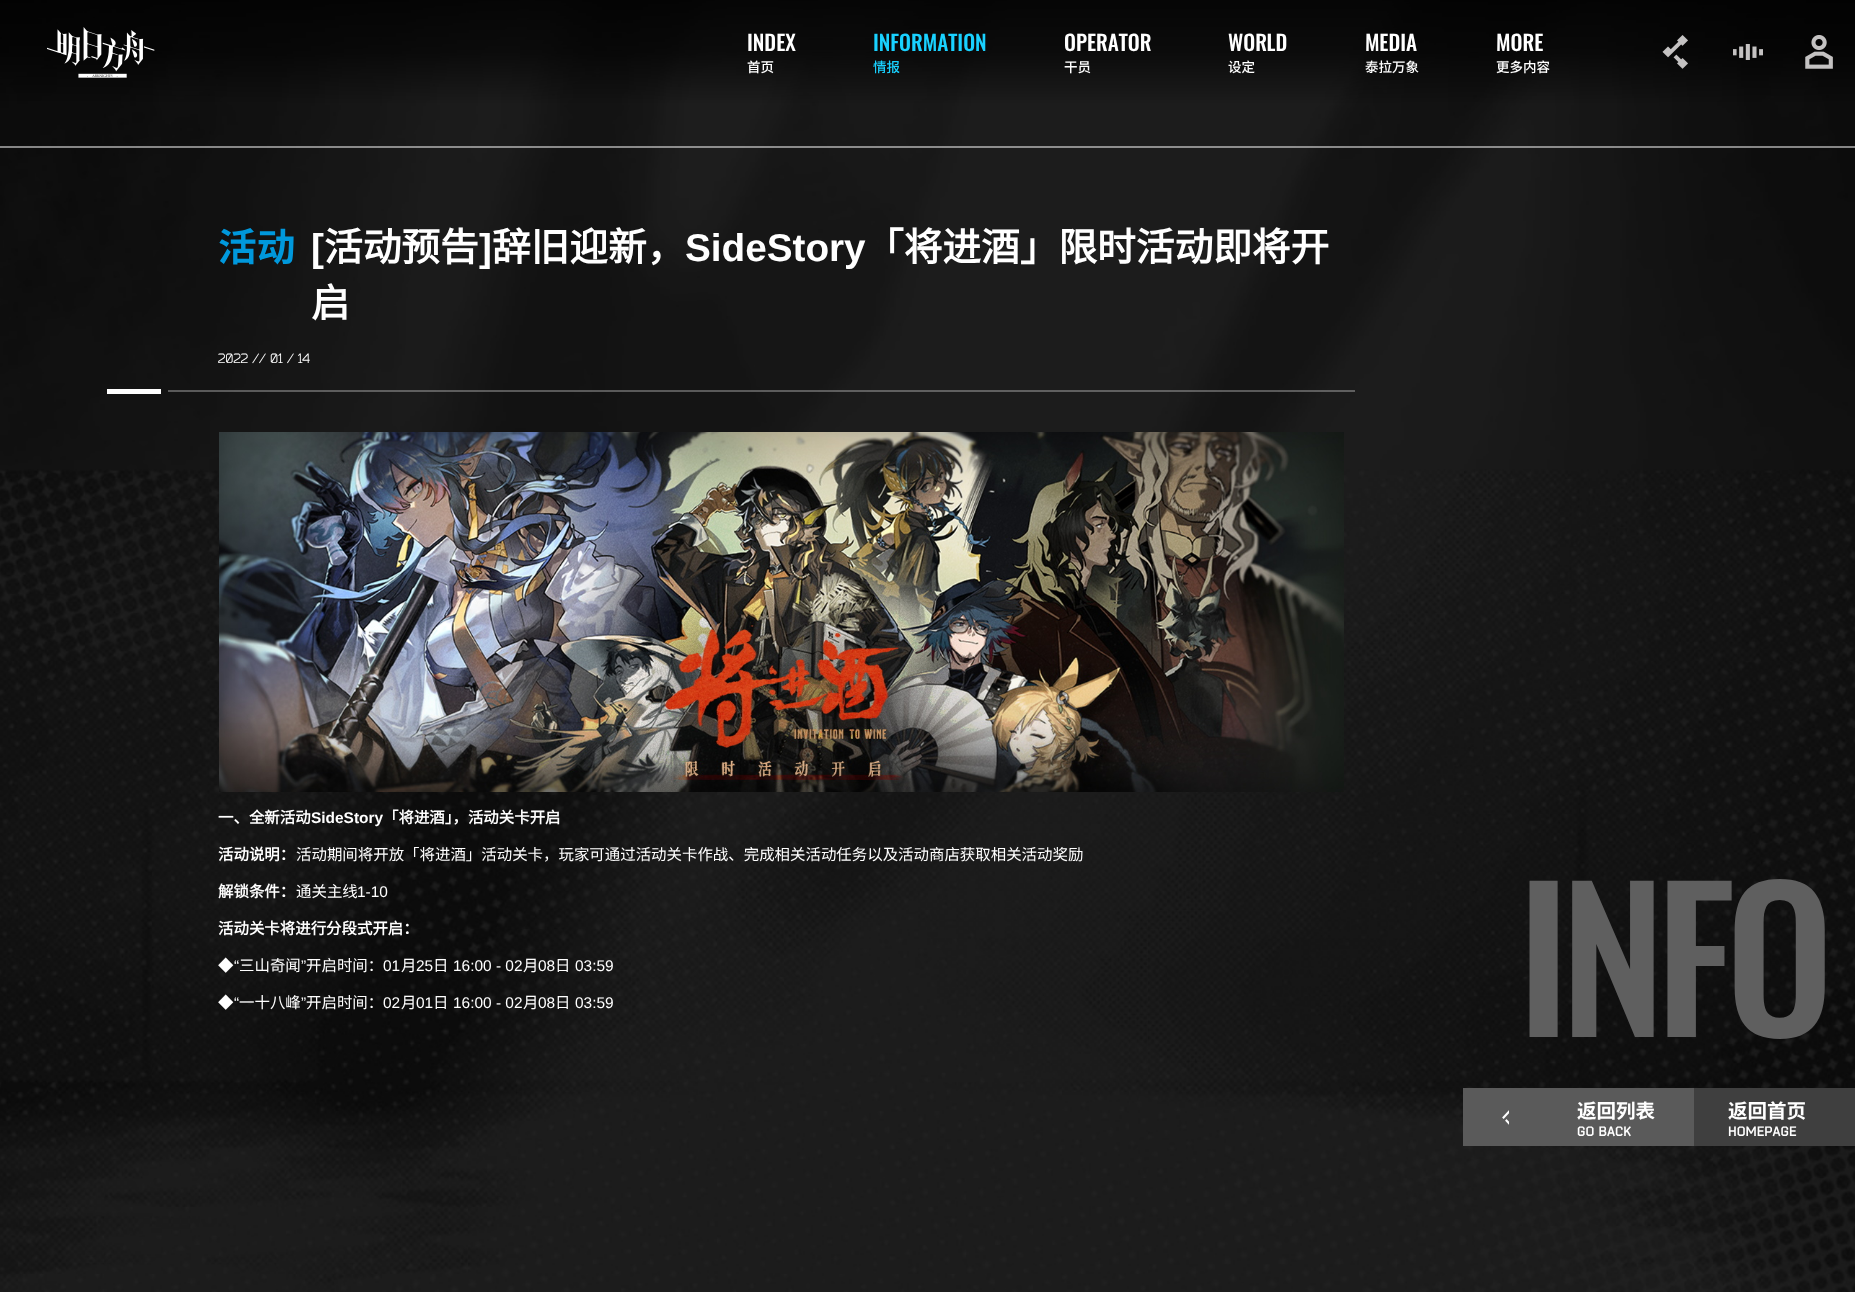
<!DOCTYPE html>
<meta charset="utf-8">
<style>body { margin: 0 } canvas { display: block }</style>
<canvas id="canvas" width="1855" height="1292"></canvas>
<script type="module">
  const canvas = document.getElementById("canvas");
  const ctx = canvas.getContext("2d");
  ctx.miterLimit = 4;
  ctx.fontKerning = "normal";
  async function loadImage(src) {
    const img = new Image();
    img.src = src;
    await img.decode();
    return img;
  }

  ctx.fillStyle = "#ffffff";
  ctx.fillRect(0, 0, 1855, 1292);
  ctx.drawImage(await loadImage("img1.png"), 0, 0, 1855, 1292);
  ctx.drawImage(await loadImage("img2.png"), 47, 27, 108, 51);
  ctx.font = "500 21.25px Oswald";
  ctx.fillText("INDEX", 747, 51);
  ctx.font = "500 13.5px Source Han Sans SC";
  ctx.fillText("首页", 747, 72);
  ctx.font = "500 21.25px Oswald";
  ctx.fillStyle = "#19d1ff";
  ctx.fillText("INFORMATION", 873, 51);
  ctx.font = "500 13.5px Source Han Sans SC";
  ctx.fillText("情报", 873, 72);
  ctx.font = "500 21.25px Oswald";
  ctx.fillStyle = "#ffffff";
  ctx.fillText("OPERATOR", 1064, 51);
  ctx.font = "500 13.5px Source Han Sans SC";
  ctx.fillText("干员", 1064, 72);
  ctx.font = "500 21.25px Oswald";
  ctx.fillText("WORLD", 1228, 51);
  ctx.font = "500 13.5px Source Han Sans SC";
  ctx.fillText("设定", 1228, 72);
  ctx.font = "500 21.25px Oswald";
  ctx.fillText("MEDIA", 1365, 51);
  ctx.font = "500 13.5px Source Han Sans SC";
  ctx.fillText("泰拉万象", 1365, 72);
  ctx.font = "500 21.25px Oswald";
  ctx.fillText("MORE", 1496, 51);
  ctx.font = "500 13.5px Source Han Sans SC";
  ctx.fillText("更多内容", 1496, 72);
  ctx.drawImage(await loadImage("img3.png"), 1662, 35, 26, 34);
  ctx.drawImage(await loadImage("img4.png"), 1733, 44, 30, 16);
  ctx.drawImage(await loadImage("img5.png"), 1805, 35, 28, 34);
  ctx.fillStyle = "rgba(255, 255, 255, 0.5)";
  ctx.fillRect(0, 146, 1855, 2);
  ctx.font = "bold 38.7px Source Han Sans SC";
  ctx.fillStyle = "#0098dc";
  ctx.fillText("活动", 218, 261);
  ctx.font = "bold 38.7px Liberation Sans";
  ctx.fillStyle = "#ffffff";
  ctx.fillText("[", 311, 261);
  ctx.font = "bold 38.7px Noto Sans CJK SC";
  ctx.fillText("活动预告", 324, 261);
  ctx.font = "bold 38.7px Liberation Sans";
  ctx.fillText("]", 479, 261);
  ctx.font = "bold 38.7px Noto Sans CJK SC";
  ctx.fillText("辞旧迎新，", 492, 261);
  ctx.font = "bold 38.7px Liberation Sans";
  ctx.fillText("SideStory", 685, 261);
  ctx.font = "bold 38.7px Noto Sans CJK SC";
  ctx.fillText("「将进酒」限时活动即将开", 865, 261);
  ctx.fillText("启", 311, 317);
  ctx.font = "13.5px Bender";
  ctx.fillText("2022 // 01 / 14", 218, 363);
  ctx.fillRect(107, 389, 54, 5);
  ctx.fillStyle = "rgba(255, 255, 255, 0.3)";
  ctx.fillRect(168, 390, 1187, 2);
  ctx.drawImage(await loadImage("img6.png"), 219, 432, 1125, 360);
  ctx.font = "bold 15.45px Noto Sans CJK SC";
  ctx.fillStyle = "#ffffff";
  ctx.fillText("一、全新活动", 218, 823);
  ctx.font = "bold 15.45px Liberation Sans";
  ctx.fillText("SideStory", 311, 823);
  ctx.font = "bold 15.45px Noto Sans CJK SC";
  ctx.fillText("「将进酒」，活动关卡开启", 383, 823);
  ctx.fillText("活动说明：", 218, 860);
  ctx.font = "15.45px Noto Sans CJK SC";
  ctx.fillText("活动期间将开放「将进酒」活动关卡，玩家可通过活动关卡作战、完成相关活动任务以及活动商店获取相关活动奖励", 296, 860);
  ctx.font = "bold 15.45px Noto Sans CJK SC";
  ctx.fillText("解锁条件：", 218, 897);
  ctx.font = "15.45px Noto Sans CJK SC";
  ctx.fillText("通关主线", 296, 897);
  ctx.font = "15.45px Liberation Sans";
  ctx.fillText("1-10", 357, 897);
  ctx.font = "bold 15.45px Noto Sans CJK SC";
  ctx.fillText("活动关卡将进行分段式开启：", 218, 934);
  ctx.font = "15.45px Noto Sans CJK SC";
  ctx.fillText("◆", 218, 971);
  ctx.font = "15.45px Liberation Sans";
  ctx.fillText("“", 234, 971);
  ctx.font = "15.45px Noto Sans CJK SC";
  ctx.fillText("三山奇闻", 239, 971);
  ctx.font = "15.45px Liberation Sans";
  ctx.fillText("”", 301, 971);
  ctx.font = "15.45px Noto Sans CJK SC";
  ctx.fillText("开启时间：", 306, 971);
  ctx.font = "15.45px Liberation Sans";
  ctx.fillText("01", 383, 971);
  ctx.font = "15.45px Noto Sans CJK SC";
  ctx.fillText("月", 401, 971);
  ctx.font = "15.45px Liberation Sans";
  ctx.fillText("25", 416, 971);
  ctx.font = "15.45px Noto Sans CJK SC";
  ctx.fillText("日", 433, 971);
  ctx.font = "15.45px Liberation Sans";
  ctx.fillText("16:00 - 02", 453, 971);
  ctx.font = "15.45px Noto Sans CJK SC";
  ctx.fillText("月", 523, 971);
  ctx.font = "15.45px Liberation Sans";
  ctx.fillText("08", 538, 971);
  ctx.font = "15.45px Noto Sans CJK SC";
  ctx.fillText("日", 555, 971);
  ctx.font = "15.45px Liberation Sans";
  ctx.fillText("03:59", 575, 971);
  ctx.font = "15.45px Noto Sans CJK SC";
  ctx.fillText("◆", 218, 1008);
  ctx.font = "15.45px Liberation Sans";
  ctx.fillText("“", 234, 1008);
  ctx.font = "15.45px Noto Sans CJK SC";
  ctx.fillText("一十八峰", 239, 1008);
  ctx.font = "15.45px Liberation Sans";
  ctx.fillText("”", 301, 1008);
  ctx.font = "15.45px Noto Sans CJK SC";
  ctx.fillText("开启时间：", 306, 1008);
  ctx.font = "15.45px Liberation Sans";
  ctx.fillText("02", 383, 1008);
  ctx.font = "15.45px Noto Sans CJK SC";
  ctx.fillText("月", 401, 1008);
  ctx.font = "15.45px Liberation Sans";
  ctx.fillText("01", 416, 1008);
  ctx.font = "15.45px Noto Sans CJK SC";
  ctx.fillText("日", 433, 1008);
  ctx.font = "15.45px Liberation Sans";
  ctx.fillText("16:00 - 02", 453, 1008);
  ctx.font = "15.45px Noto Sans CJK SC";
  ctx.fillText("月", 523, 1008);
  ctx.font = "15.45px Liberation Sans";
  ctx.fillText("08", 538, 1008);
  ctx.font = "15.45px Noto Sans CJK SC";
  ctx.fillText("日", 555, 1008);
  ctx.font = "15.45px Liberation Sans";
  ctx.fillText("03:59", 575, 1008);
  ctx.letterSpacing = "-9.5px";
  ctx.font = "500 193px Oswald";
  ctx.fillStyle = "#5f5f5f";
  ctx.fillText("INFO", 1517, 1037);
  ctx.fillStyle = "#5a5a5a";
  ctx.fillRect(1463, 1088, 231, 58);
  ctx.drawImage(await loadImage("img7.png"), 1502, 1110, 7, 15);
  ctx.letterSpacing = "0px";
  ctx.font = "bold 19.5px Source Han Sans SC";
  ctx.fillStyle = "#ffffff";
  ctx.fillText("返回列表", 1577, 1118);
  ctx.font = "bold 13.5px Bender";
  ctx.fillText("GO BACK", 1577, 1136);
  ctx.fillStyle = "#3f3f3f";
  ctx.fillRect(1694, 1088, 161, 58);
  ctx.font = "bold 19.5px Source Han Sans SC";
  ctx.fillStyle = "#ffffff";
  ctx.fillText("返回首页", 1728, 1118);
  ctx.font = "bold 13.5px Bender";
  ctx.fillText("HOMEPAGE", 1728, 1136);
</script>
